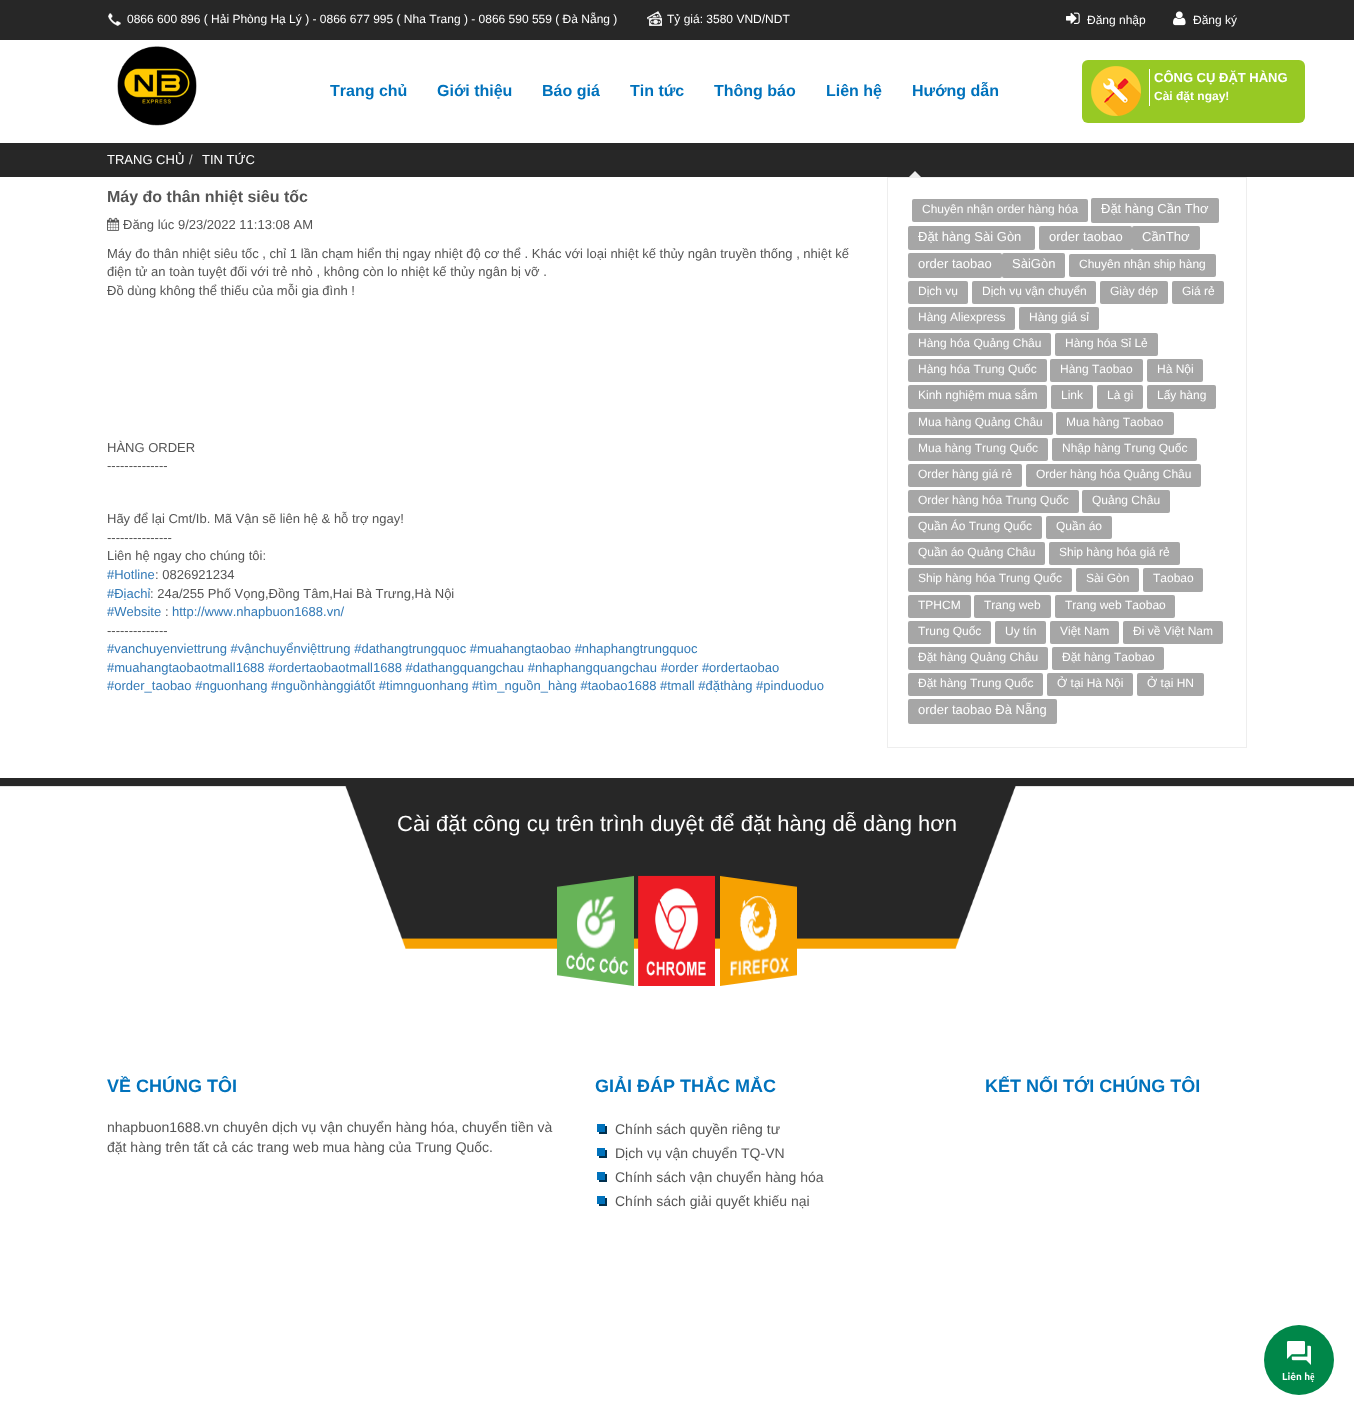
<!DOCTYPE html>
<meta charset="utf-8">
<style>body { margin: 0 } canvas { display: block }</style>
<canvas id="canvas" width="1354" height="1415"></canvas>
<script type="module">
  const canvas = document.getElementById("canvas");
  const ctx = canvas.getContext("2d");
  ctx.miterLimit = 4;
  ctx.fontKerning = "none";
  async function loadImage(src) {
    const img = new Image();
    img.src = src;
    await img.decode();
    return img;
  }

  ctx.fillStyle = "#ffffff";
  ctx.fillRect(0, 0, 1354, 1415);
  ctx.fillStyle = "#272727";
  ctx.fillRect(0, 0, 1354, 40);
  ctx.drawImage(await loadImage("img1.png"), 108, 13, 13, 13);
  ctx.font = "12px Liberation Sans";
  ctx.fillStyle = "#ffffff";
  ctx.fillText("0866 600 896 ( Hải Phòng Hạ Lý ) - 0866 677 995 ( Nha Trang ) - 0866 590 559 ( Đà Nẵng )", 127, 23);
  ctx.drawImage(await loadImage("img2.png"), 647, 11, 15, 15);
  ctx.fillText("Tỷ giá: 3580 VND/NDT", 667, 23);
  ctx.drawImage(await loadImage("img3.png"), 1066, 12, 14, 12);
  ctx.fillText("Đăng nhập", 1087, 24);
  ctx.drawImage(await loadImage("img4.png"), 1173, 11, 13, 15);
  ctx.fillText("Đăng ký", 1193, 24);
  ctx.drawImage(await loadImage("img5.png"), 117, 46, 80, 80);
  ctx.font = "bold 16px Liberation Sans";
  ctx.fillStyle = "#0072bc";
  ctx.fillText("Trang chủ", 330, 96);
  ctx.fillText("Giới thiệu", 437, 96);
  ctx.fillText("Báo giá", 542, 96);
  ctx.fillText("Tin tức", 630, 96);
  ctx.fillText("Thông báo", 714, 96);
  ctx.fillText("Liên hệ", 826, 96);
  ctx.fillText("Hướng dẫn", 912, 96);
  ctx.fillStyle = "#97c924";
  ctx.beginPath();
  ctx.roundRect(1082, 60, 223, 63, 6);
  ctx.fill();
  ctx.drawImage(await loadImage("img6.png"), 1091, 66, 50, 50);
  ctx.fillStyle = "#ffffff";
  ctx.fillRect(1149, 69, 1, 37);
  ctx.font = "bold 13px Liberation Sans";
  ctx.fillText("CÔNG CỤ ĐẶT HÀNG", 1154, 82);
  ctx.font = "bold 12px Liberation Sans";
  ctx.fillText("Cài đặt ngay!", 1154, 100);
  ctx.fillStyle = "#272727";
  ctx.fillRect(0, 143, 1354, 34);
  ctx.font = "13px Liberation Sans";
  ctx.fillStyle = "#ffffff";
  ctx.fillText("TRANG CHỦ", 107, 164);
  ctx.fillStyle = "#cccccc";
  ctx.fillText("/", 189, 164);
  ctx.fillStyle = "#ffffff";
  ctx.fillText("TIN TỨC", 202, 164);
  ctx.font = "bold 16px Liberation Sans";
  ctx.fillStyle = "#555555";
  ctx.fillText("Máy đo thân nhiệt siêu tốc", 107, 202);
  ctx.drawImage(await loadImage("img7.png"), 107, 217, 13, 14);
  ctx.font = "13px Liberation Sans";
  ctx.fillText("Đăng lúc 9/23/2022 11:13:08 AM", 123, 229);
  ctx.fillText("Máy đo thân nhiệt siêu tốc , chỉ 1 lần chạm hiển thị ngay nhiệt độ cơ thể . Khác với loại nhiệt kế thủy ngân truyền thống , nhiệt kế", 107, 258);
  ctx.fillText("điện tử an toàn tuyệt đối với trẻ nhỏ , không còn lo nhiệt kế thủy ngân bị vỡ .", 107, 276);
  ctx.fillText("Đồ dùng không thể thiếu của mỗi gia đình !", 107, 295);
  ctx.fillText("HÀNG ORDER", 107, 452);
  ctx.fillText("--------------", 107, 470);
  ctx.fillText("Hãy để lại Cmt/Ib. Mã Vận sẽ liên hệ & hỗ trợ ngay!", 107, 523);
  ctx.fillText("---------------", 107, 542);
  ctx.fillText("Liên hệ ngay cho chúng tôi:", 107, 560);
  ctx.fillStyle = "#337ab7";
  ctx.fillText("#Hotline", 107, 579);
  ctx.fillStyle = "#555555";
  ctx.fillText(": 0826921234", 155, 579);
  ctx.fillStyle = "#337ab7";
  ctx.fillText("#Địachỉ", 107, 598);
  ctx.fillStyle = "#555555";
  ctx.fillText(": 24a/255 Phố Vọng,Đồng Tâm,Hai Bà Trưng,Hà Nội", 150, 598);
  ctx.fillStyle = "#337ab7";
  ctx.fillText("#Website", 107, 616);
  ctx.fillStyle = "#555555";
  ctx.fillText(":", 165, 616);
  ctx.fillStyle = "#337ab7";
  ctx.fillText("http://www.nhapbuon1688.vn/", 172, 616);
  ctx.fillStyle = "#555555";
  ctx.fillText("--------------", 107, 635);
  ctx.fillStyle = "#337ab7";
  ctx.fillText("#vanchuyenviettrung #vậnchuyểnviệttrung #dathangtrungquoc #muahangtaobao #nhaphangtrungquoc", 107, 653);
  ctx.fillText("#muahangtaobaotmall1688 #ordertaobaotmall1688 #dathangquangchau #nhaphangquangchau #order #ordertaobao", 107, 672);
  ctx.fillText("#order_taobao #nguonhang #nguồnhànggiátốt #timnguonhang #tìm_nguồn_hàng #taobao1688 #tmall #đặthàng #pinduoduo", 107, 690);
  ctx.strokeStyle = "#eeeeee";
  ctx.strokeRect(887.5, 177.5, 359, 570);
  ctx.fillStyle = "#eeeeee";
  ctx.beginPath();
  ctx.moveTo(922, 178);
  ctx.lineTo(908, 178);
  ctx.lineTo(915, 171);
  ctx.closePath();
  ctx.fill();
  ctx.fillStyle = "#a6a6a6";
  ctx.beginPath();
  ctx.roundRect(912, 199, 176, 23, 2);
  ctx.fill();
  ctx.font = "12px Liberation Sans";
  ctx.fillStyle = "#ffffff";
  ctx.fillText("Chuyên nhận order hàng hóa", 922, 213);
  ctx.fillStyle = "#a6a6a6";
  ctx.beginPath();
  ctx.roundRect(1091, 198, 128, 25, 2);
  ctx.fill();
  ctx.font = "13px Liberation Sans";
  ctx.fillStyle = "#ffffff";
  ctx.fillText("Đặt hàng Cần Thơ", 1101, 213);
  ctx.fillStyle = "#a6a6a6";
  ctx.beginPath();
  ctx.roundRect(908, 226, 127, 24, 2);
  ctx.fill();
  ctx.fillStyle = "#ffffff";
  ctx.fillText("Đặt hàng Sài Gòn", 918, 241);
  ctx.fillStyle = "#a6a6a6";
  ctx.beginPath();
  ctx.roundRect(1039, 226, 93, 24, 2);
  ctx.fill();
  ctx.fillStyle = "#ffffff";
  ctx.fillText("order taobao", 1049, 241);
  ctx.fillStyle = "#a6a6a6";
  ctx.beginPath();
  ctx.roundRect(1132, 226, 68, 24, 2);
  ctx.fill();
  ctx.fillStyle = "#ffffff";
  ctx.fillText("CầnThơ", 1142, 241);
  ctx.fillStyle = "#a6a6a6";
  ctx.beginPath();
  ctx.roundRect(908, 253, 94, 25, 2);
  ctx.fill();
  ctx.fillStyle = "#ffffff";
  ctx.fillText("order taobao", 918, 268);
  ctx.fillStyle = "#a6a6a6";
  ctx.beginPath();
  ctx.roundRect(1002, 253, 63, 25, 2);
  ctx.fill();
  ctx.fillStyle = "#ffffff";
  ctx.fillText("SàiGòn", 1012, 268);
  ctx.fillStyle = "#a6a6a6";
  ctx.beginPath();
  ctx.roundRect(1069, 254, 147, 23, 2);
  ctx.fill();
  ctx.font = "12px Liberation Sans";
  ctx.fillStyle = "#ffffff";
  ctx.fillText("Chuyên nhận ship hàng", 1079, 268);
  ctx.fillStyle = "#a6a6a6";
  ctx.beginPath();
  ctx.roundRect(908, 281, 60, 23, 2);
  ctx.fill();
  ctx.fillStyle = "#ffffff";
  ctx.fillText("Dịch vụ", 918, 295);
  ctx.fillStyle = "#a6a6a6";
  ctx.beginPath();
  ctx.roundRect(972, 281, 124, 23, 2);
  ctx.fill();
  ctx.fillStyle = "#ffffff";
  ctx.fillText("Dịch vụ vận chuyển", 982, 295);
  ctx.fillStyle = "#a6a6a6";
  ctx.beginPath();
  ctx.roundRect(1100, 281, 68, 23, 2);
  ctx.fill();
  ctx.fillStyle = "#ffffff";
  ctx.fillText("Giày dép", 1110, 295);
  ctx.fillStyle = "#a6a6a6";
  ctx.beginPath();
  ctx.roundRect(1172, 281, 52, 23, 2);
  ctx.fill();
  ctx.fillStyle = "#ffffff";
  ctx.fillText("Giá rẻ", 1182, 295);
  ctx.fillStyle = "#a6a6a6";
  ctx.beginPath();
  ctx.roundRect(908, 307, 107, 23, 2);
  ctx.fill();
  ctx.fillStyle = "#ffffff";
  ctx.fillText("Hàng Aliexpress", 918, 321);
  ctx.fillStyle = "#a6a6a6";
  ctx.beginPath();
  ctx.roundRect(1019, 307, 80, 23, 2);
  ctx.fill();
  ctx.fillStyle = "#ffffff";
  ctx.fillText("Hàng giá sỉ", 1029, 321);
  ctx.fillStyle = "#a6a6a6";
  ctx.beginPath();
  ctx.roundRect(908, 333, 143, 23, 2);
  ctx.fill();
  ctx.fillStyle = "#ffffff";
  ctx.fillText("Hàng hóa Quảng Châu", 918, 347);
  ctx.fillStyle = "#a6a6a6";
  ctx.beginPath();
  ctx.roundRect(1055, 333, 103, 23, 2);
  ctx.fill();
  ctx.fillStyle = "#ffffff";
  ctx.fillText("Hàng hóa Sỉ Lẻ", 1065, 347);
  ctx.fillStyle = "#a6a6a6";
  ctx.beginPath();
  ctx.roundRect(908, 359, 139, 23, 2);
  ctx.fill();
  ctx.fillStyle = "#ffffff";
  ctx.fillText("Hàng hóa Trung Quốc", 918, 373);
  ctx.fillStyle = "#a6a6a6";
  ctx.beginPath();
  ctx.roundRect(1050, 359, 93, 23, 2);
  ctx.fill();
  ctx.fillStyle = "#ffffff";
  ctx.fillText("Hàng Taobao", 1060, 373);
  ctx.fillStyle = "#a6a6a6";
  ctx.beginPath();
  ctx.roundRect(1147, 359, 56, 23, 2);
  ctx.fill();
  ctx.fillStyle = "#ffffff";
  ctx.fillText("Hà Nội", 1157, 373);
  ctx.fillStyle = "#a6a6a6";
  ctx.beginPath();
  ctx.roundRect(908, 385, 139, 24, 2);
  ctx.fill();
  ctx.fillStyle = "#ffffff";
  ctx.fillText("Kinh nghiệm mua sắm", 918, 399);
  ctx.fillStyle = "#a6a6a6";
  ctx.beginPath();
  ctx.roundRect(1051, 385, 42, 24, 2);
  ctx.fill();
  ctx.fillStyle = "#ffffff";
  ctx.fillText("Link", 1061, 399);
  ctx.fillStyle = "#a6a6a6";
  ctx.beginPath();
  ctx.roundRect(1097, 385, 46, 24, 2);
  ctx.fill();
  ctx.fillStyle = "#ffffff";
  ctx.fillText("Là gì", 1107, 399);
  ctx.fillStyle = "#a6a6a6";
  ctx.beginPath();
  ctx.roundRect(1147, 385, 69, 24, 2);
  ctx.fill();
  ctx.fillStyle = "#ffffff";
  ctx.fillText("Lấy hàng", 1157, 399);
  ctx.fillStyle = "#a6a6a6";
  ctx.beginPath();
  ctx.roundRect(908, 412, 145, 23, 2);
  ctx.fill();
  ctx.fillStyle = "#ffffff";
  ctx.fillText("Mua hàng Quảng Châu", 918, 426);
  ctx.fillStyle = "#a6a6a6";
  ctx.beginPath();
  ctx.roundRect(1056, 412, 118, 23, 2);
  ctx.fill();
  ctx.fillStyle = "#ffffff";
  ctx.fillText("Mua hàng Taobao", 1066, 426);
  ctx.fillStyle = "#a6a6a6";
  ctx.beginPath();
  ctx.roundRect(908, 438, 140, 23, 2);
  ctx.fill();
  ctx.fillStyle = "#ffffff";
  ctx.fillText("Mua hàng Trung Quốc", 918, 452);
  ctx.fillStyle = "#a6a6a6";
  ctx.beginPath();
  ctx.roundRect(1052, 438, 145, 23, 2);
  ctx.fill();
  ctx.fillStyle = "#ffffff";
  ctx.fillText("Nhập hàng Trung Quốc", 1062, 452);
  ctx.fillStyle = "#a6a6a6";
  ctx.beginPath();
  ctx.roundRect(908, 464, 114, 23, 2);
  ctx.fill();
  ctx.fillStyle = "#ffffff";
  ctx.fillText("Order hàng giá rẻ", 918, 478);
  ctx.fillStyle = "#a6a6a6";
  ctx.beginPath();
  ctx.roundRect(1026, 464, 175, 23, 2);
  ctx.fill();
  ctx.fillStyle = "#ffffff";
  ctx.fillText("Order hàng hóa Quảng Châu", 1036, 478);
  ctx.fillStyle = "#a6a6a6";
  ctx.beginPath();
  ctx.roundRect(908, 490, 171, 23, 2);
  ctx.fill();
  ctx.fillStyle = "#ffffff";
  ctx.fillText("Order hàng hóa Trung Quốc", 918, 504);
  ctx.fillStyle = "#a6a6a6";
  ctx.beginPath();
  ctx.roundRect(1082, 490, 88, 23, 2);
  ctx.fill();
  ctx.fillStyle = "#ffffff";
  ctx.fillText("Quảng Châu", 1092, 504);
  ctx.fillStyle = "#a6a6a6";
  ctx.beginPath();
  ctx.roundRect(908, 516, 134, 23, 2);
  ctx.fill();
  ctx.fillStyle = "#ffffff";
  ctx.fillText("Quần Áo Trung Quốc", 918, 530);
  ctx.fillStyle = "#a6a6a6";
  ctx.beginPath();
  ctx.roundRect(1046, 516, 66, 23, 2);
  ctx.fill();
  ctx.fillStyle = "#ffffff";
  ctx.fillText("Quần áo", 1056, 530);
  ctx.fillStyle = "#a6a6a6";
  ctx.beginPath();
  ctx.roundRect(908, 542, 137, 23, 2);
  ctx.fill();
  ctx.fillStyle = "#ffffff";
  ctx.fillText("Quần áo Quảng Châu", 918, 556);
  ctx.fillStyle = "#a6a6a6";
  ctx.beginPath();
  ctx.roundRect(1049, 542, 131, 23, 2);
  ctx.fill();
  ctx.fillStyle = "#ffffff";
  ctx.fillText("Ship hàng hóa giá rẻ", 1059, 556);
  ctx.fillStyle = "#a6a6a6";
  ctx.beginPath();
  ctx.roundRect(908, 568, 164, 24, 2);
  ctx.fill();
  ctx.fillStyle = "#ffffff";
  ctx.fillText("Ship hàng hóa Trung Quốc", 918, 582);
  ctx.fillStyle = "#a6a6a6";
  ctx.beginPath();
  ctx.roundRect(1076, 568, 63, 24, 2);
  ctx.fill();
  ctx.fillStyle = "#ffffff";
  ctx.fillText("Sài Gòn", 1086, 582);
  ctx.fillStyle = "#a6a6a6";
  ctx.beginPath();
  ctx.roundRect(1143, 568, 60, 24, 2);
  ctx.fill();
  ctx.fillStyle = "#ffffff";
  ctx.fillText("Taobao", 1153, 582);
  ctx.fillStyle = "#a6a6a6";
  ctx.beginPath();
  ctx.roundRect(908, 595, 63, 23, 2);
  ctx.fill();
  ctx.fillStyle = "#ffffff";
  ctx.fillText("TPHCM", 918, 609);
  ctx.fillStyle = "#a6a6a6";
  ctx.beginPath();
  ctx.roundRect(974, 595, 77, 23, 2);
  ctx.fill();
  ctx.fillStyle = "#ffffff";
  ctx.fillText("Trang web", 984, 609);
  ctx.fillStyle = "#a6a6a6";
  ctx.beginPath();
  ctx.roundRect(1055, 595, 120, 23, 2);
  ctx.fill();
  ctx.fillStyle = "#ffffff";
  ctx.fillText("Trang web Taobao", 1065, 609);
  ctx.fillStyle = "#a6a6a6";
  ctx.beginPath();
  ctx.roundRect(908, 621, 83, 23, 2);
  ctx.fill();
  ctx.fillStyle = "#ffffff";
  ctx.fillText("Trung Quốc", 918, 635);
  ctx.fillStyle = "#a6a6a6";
  ctx.beginPath();
  ctx.roundRect(995, 621, 51, 23, 2);
  ctx.fill();
  ctx.fillStyle = "#ffffff";
  ctx.fillText("Uy tín", 1005, 635);
  ctx.fillStyle = "#a6a6a6";
  ctx.beginPath();
  ctx.roundRect(1050, 621, 69, 23, 2);
  ctx.fill();
  ctx.fillStyle = "#ffffff";
  ctx.fillText("Việt Nam", 1060, 635);
  ctx.fillStyle = "#a6a6a6";
  ctx.beginPath();
  ctx.roundRect(1123, 621, 100, 23, 2);
  ctx.fill();
  ctx.fillStyle = "#ffffff";
  ctx.fillText("Đi về Việt Nam", 1133, 635);
  ctx.fillStyle = "#a6a6a6";
  ctx.beginPath();
  ctx.roundRect(908, 647, 140, 23, 2);
  ctx.fill();
  ctx.fillStyle = "#ffffff";
  ctx.fillText("Đặt hàng Quảng Châu", 918, 661);
  ctx.fillStyle = "#a6a6a6";
  ctx.beginPath();
  ctx.roundRect(1052, 647, 112, 23, 2);
  ctx.fill();
  ctx.fillStyle = "#ffffff";
  ctx.fillText("Đặt hàng Taobao", 1062, 661);
  ctx.fillStyle = "#a6a6a6";
  ctx.beginPath();
  ctx.roundRect(908, 673, 135, 23, 2);
  ctx.fill();
  ctx.fillStyle = "#ffffff";
  ctx.fillText("Đặt hàng Trung Quốc", 918, 687);
  ctx.fillStyle = "#a6a6a6";
  ctx.beginPath();
  ctx.roundRect(1047, 673, 86, 23, 2);
  ctx.fill();
  ctx.fillStyle = "#ffffff";
  ctx.fillText("Ở tại Hà Nội", 1057, 687);
  ctx.fillStyle = "#a6a6a6";
  ctx.beginPath();
  ctx.roundRect(1137, 673, 67, 23, 2);
  ctx.fill();
  ctx.fillStyle = "#ffffff";
  ctx.fillText("Ở tại HN", 1147, 687);
  ctx.fillStyle = "#a6a6a6";
  ctx.beginPath();
  ctx.roundRect(908, 699, 149, 25, 2);
  ctx.fill();
  ctx.font = "13px Liberation Sans";
  ctx.fillStyle = "#ffffff";
  ctx.fillText("order taobao Đà Nẵng", 918, 714);
  ctx.drawImage(await loadImage("img8.png"), 0, 778, 1354, 208);
  ctx.font = "22px Liberation Sans";
  ctx.fillText("Cài đặt công cụ trên trình duyệt để đặt hàng dễ dàng hơn", 397, 831);
  ctx.font = "bold 18px Liberation Sans";
  ctx.fillStyle = "#0072bc";
  ctx.fillText("VỀ CHÚNG TÔI", 107, 1092);
  ctx.font = "14px Liberation Sans";
  ctx.fillStyle = "#555555";
  ctx.fillText("nhapbuon1688.vn chuyên dịch vụ vận chuyển hàng hóa, chuyển tiền và", 107, 1132);
  ctx.fillText("đặt hàng trên tất cả các trang web mua hàng của Trung Quốc.", 107, 1152);
  ctx.font = "bold 18px Liberation Sans";
  ctx.fillStyle = "#0072bc";
  ctx.fillText("GIẢI ĐÁP THẮC MẮC", 595, 1092);
  ctx.drawImage(await loadImage("img9.png"), 597, 1124, 10, 10);
  ctx.font = "14px Liberation Sans";
  ctx.fillStyle = "#555555";
  ctx.fillText("Chính sách quyền riêng tư", 615, 1134);
  ctx.drawImage(await loadImage("img9.png"), 597, 1148, 10, 10);
  ctx.fillText("Dịch vụ vận chuyển TQ-VN", 615, 1158);
  ctx.drawImage(await loadImage("img9.png"), 597, 1172, 10, 10);
  ctx.fillText("Chính sách vận chuyển hàng hóa", 615, 1182);
  ctx.drawImage(await loadImage("img9.png"), 597, 1196, 10, 10);
  ctx.fillText("Chính sách giải quyết khiếu nại", 615, 1206);
  ctx.font = "bold 18px Liberation Sans";
  ctx.fillStyle = "#0072bc";
  ctx.fillText("KẾT NỐI TỚI CHÚNG TÔI", 985, 1092);
  ctx.fillStyle = "#008749";
  ctx.beginPath();
  ctx.arc(1299, 1360, 35, 0, Math.PI * 2);
  ctx.fill();
  ctx.drawImage(await loadImage("img10.png"), 1287, 1341, 24, 24);
  ctx.font = "bold 10px Ubuntu";
  ctx.fillStyle = "#ffffff";
  ctx.fillText("Liên hệ", 1282, 1380);
</script>
